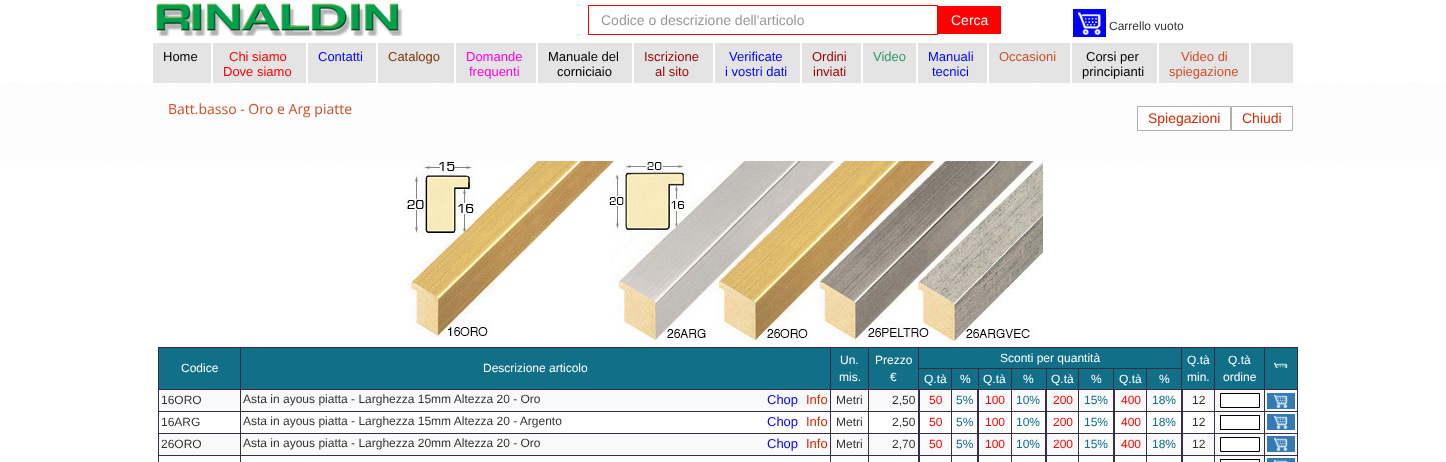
<!DOCTYPE html>
<meta charset="utf-8">
<style>body { margin: 0 } canvas { display: block }</style>
<canvas id="canvas" width="1446" height="462"></canvas>
<script type="module">
  const canvas = document.getElementById("canvas");
  const ctx = canvas.getContext("2d");
  ctx.miterLimit = 4;
  ctx.fontKerning = "normal";
  async function loadImage(src) {
    const img = new Image();
    img.src = src;
    await img.decode();
    return img;
  }

  ctx.fillStyle = "#ffffff";
  ctx.fillRect(0, 0, 1446, 462);
  ctx.drawImage(await loadImage("img1.png"), 156, 3, 247, 33);
  ctx.strokeStyle = "#ff0000";
  ctx.strokeRect(588.5, 5.5, 349, 29);
  ctx.font = "14px Liberation Sans";
  ctx.fillStyle = "#999999";
  ctx.fillText("Codice o descrizione dell'articolo", 601, 25);
  ctx.fillStyle = "#ff0000";
  ctx.fillRect(938, 6, 63, 28);
  ctx.fillStyle = "#ffffff";
  ctx.fillText("Cerca", 951, 25);
  ctx.fillStyle = "#0000ff";
  ctx.fillRect(1073, 9, 33, 28);
  ctx.drawImage(await loadImage("img2.png"), 1078, 11, 23, 24);
  ctx.font = "12px Liberation Sans";
  ctx.fillStyle = "#333333";
  ctx.fillText("Carrello vuoto", 1109, 30);
  ctx.fillStyle = "#e4e4e4";
  ctx.fillRect(153, 43, 1140, 40);
  ctx.fillStyle = "#ffffff";
  ctx.fillRect(211, 43, 2, 40);
  ctx.font = "13px Liberation Sans";
  ctx.fillStyle = "#000000";
  ctx.fillText("Home", 163, 61);
  ctx.fillStyle = "#ffffff";
  ctx.fillRect(306, 43, 2, 40);
  ctx.fillStyle = "#ff0000";
  ctx.fillText("Chi siamo", 229, 61);
  ctx.fillText("Dove siamo", 223, 76);
  ctx.fillStyle = "#ffffff";
  ctx.fillRect(376, 43, 2, 40);
  ctx.fillStyle = "#0000ff";
  ctx.fillText("Contatti", 318, 61);
  ctx.fillStyle = "#ffffff";
  ctx.fillRect(454, 43, 2, 40);
  ctx.fillStyle = "#773a00";
  ctx.fillText("Catalogo", 388, 61);
  ctx.fillStyle = "#ffffff";
  ctx.fillRect(536, 43, 2, 40);
  ctx.fillStyle = "#ff00de";
  ctx.fillText("Domande", 466, 61);
  ctx.fillText("frequenti", 469, 76);
  ctx.fillStyle = "#ffffff";
  ctx.fillRect(632, 43, 2, 40);
  ctx.fillStyle = "#000000";
  ctx.fillText("Manuale del", 548, 61);
  ctx.fillText("corniciaio", 557, 76);
  ctx.fillStyle = "#ffffff";
  ctx.fillRect(713, 43, 2, 40);
  ctx.fillStyle = "#9a0000";
  ctx.fillText("Iscrizione", 644, 61);
  ctx.fillText("al sito", 655, 76);
  ctx.fillStyle = "#ffffff";
  ctx.fillRect(800, 43, 2, 40);
  ctx.fillStyle = "#0000ff";
  ctx.fillText("Verificate", 729, 61);
  ctx.fillText("i vostri dati", 725, 76);
  ctx.fillStyle = "#ffffff";
  ctx.fillRect(861, 43, 2, 40);
  ctx.fillStyle = "#9a0000";
  ctx.fillText("Ordini", 812, 61);
  ctx.fillText("inviati", 813, 76);
  ctx.fillStyle = "#ffffff";
  ctx.fillRect(916, 43, 2, 40);
  ctx.fillStyle = "#339966";
  ctx.fillText("Video", 873, 61);
  ctx.fillStyle = "#ffffff";
  ctx.fillRect(987, 43, 2, 40);
  ctx.fillStyle = "#0000ff";
  ctx.fillText("Manuali", 928, 61);
  ctx.fillText("tecnici", 932, 76);
  ctx.fillStyle = "#ffffff";
  ctx.fillRect(1070, 43, 2, 40);
  ctx.fillStyle = "#cd4e28";
  ctx.fillText("Occasioni", 999, 61);
  ctx.fillStyle = "#ffffff";
  ctx.fillRect(1157, 43, 2, 40);
  ctx.fillStyle = "#000000";
  ctx.fillText("Corsi per", 1086, 61);
  ctx.fillText("principianti", 1082, 76);
  ctx.fillStyle = "#ffffff";
  ctx.fillRect(1249, 43, 2, 40);
  ctx.fillStyle = "#cd4e28";
  ctx.fillText("Video di", 1181, 61);
  ctx.fillText("spiegazione", 1169, 76);
  ctx.drawImage(await loadImage("img3.png"), 0, 83, 1446, 78);
  ctx.font = "14px Open Sans";
  ctx.fillText("Batt.basso - Oro e Arg piatte", 168, 114);
  ctx.fillStyle = "#ffffff";
  ctx.beginPath();
  ctx.rect(1137.5, 106.5, 93, 24);
  ctx.fill();
  ctx.strokeStyle = "#afafae";
  ctx.stroke();
  ctx.font = "14px Liberation Sans";
  ctx.fillStyle = "#d12a04";
  ctx.fillText("Spiegazioni", 1148, 123);
  ctx.fillStyle = "#ffffff";
  ctx.beginPath();
  ctx.rect(1231.5, 106.5, 61, 24);
  ctx.fill();
  ctx.stroke();
  ctx.fillStyle = "#d12a04";
  ctx.fillText("Chiudi", 1242, 123);
  ctx.drawImage(await loadImage("img4.png"), 403, 161, 640, 186);
  ctx.fillStyle = "#352e46";
  ctx.fillRect(158, 347, 1140, 1);
  ctx.fillRect(1297, 347, 1, 115);
  ctx.fillRect(158, 347, 1, 115);
  ctx.fillStyle = "#117088";
  ctx.fillRect(159, 348, 1138, 41);
  ctx.font = "12px Liberation Sans";
  ctx.fillStyle = "#ffffff";
  ctx.fillText("Codice", 181, 372);
  ctx.fillStyle = "#f9f9f9";
  ctx.fillRect(159, 390, 1138, 21);
  ctx.fillStyle = "#352e46";
  ctx.fillRect(1264, 389, 34, 1);
  ctx.fillRect(1264, 411, 34, 1);
  ctx.fillRect(1264, 433, 34, 1);
  ctx.fillRect(1264, 455, 34, 1);
  ctx.fillRect(1264, 455, 1, 7);
  ctx.fillRect(1214, 455, 51, 1);
  ctx.fillStyle = "#f9f9f9";
  ctx.fillRect(159, 434, 1138, 21);
  ctx.fillStyle = "#352e46";
  ctx.fillRect(1264, 433, 1, 23);
  ctx.fillRect(1214, 433, 51, 1);
  ctx.fillRect(1264, 411, 1, 23);
  ctx.fillRect(1214, 411, 51, 1);
  ctx.fillRect(1264, 389, 1, 23);
  ctx.fillRect(1214, 389, 51, 1);
  ctx.fillRect(1214, 455, 1, 7);
  ctx.fillRect(1146, 455, 69, 1);
  ctx.fillRect(1214, 433, 1, 23);
  ctx.fillRect(1146, 433, 69, 1);
  ctx.fillRect(1214, 411, 1, 23);
  ctx.fillRect(1146, 411, 69, 1);
  ctx.fillRect(1214, 389, 1, 23);
  ctx.fillRect(1146, 389, 69, 1);
  ctx.fillRect(1146, 455, 1, 7);
  ctx.fillRect(1078, 455, 69, 1);
  ctx.fillRect(1146, 433, 1, 23);
  ctx.fillRect(1078, 433, 69, 1);
  ctx.fillRect(1146, 411, 1, 23);
  ctx.fillRect(1078, 411, 69, 1);
  ctx.fillRect(1146, 389, 1, 23);
  ctx.fillRect(1078, 389, 69, 1);
  ctx.fillRect(1078, 455, 1, 7);
  ctx.fillRect(1011, 455, 68, 1);
  ctx.fillRect(1078, 433, 1, 23);
  ctx.fillRect(1011, 433, 68, 1);
  ctx.fillRect(1078, 411, 1, 23);
  ctx.fillRect(1011, 411, 68, 1);
  ctx.fillRect(1078, 389, 1, 23);
  ctx.fillRect(1011, 389, 68, 1);
  ctx.fillRect(1011, 455, 1, 7);
  ctx.fillRect(951, 455, 61, 1);
  ctx.fillRect(1011, 433, 1, 23);
  ctx.fillRect(951, 433, 61, 1);
  ctx.fillRect(1011, 411, 1, 23);
  ctx.fillRect(951, 411, 61, 1);
  ctx.fillRect(1011, 389, 1, 23);
  ctx.fillRect(951, 389, 61, 1);
  ctx.fillRect(951, 455, 1, 7);
  ctx.fillRect(868, 455, 84, 1);
  ctx.fillRect(951, 433, 1, 23);
  ctx.fillRect(868, 433, 84, 1);
  ctx.fillRect(951, 411, 1, 23);
  ctx.fillRect(868, 411, 84, 1);
  ctx.fillRect(951, 389, 1, 23);
  ctx.fillRect(868, 389, 84, 1);
  ctx.fillRect(868, 455, 1, 7);
  ctx.fillRect(830, 455, 39, 1);
  ctx.fillRect(868, 433, 1, 23);
  ctx.fillRect(830, 433, 39, 1);
  ctx.fillRect(868, 411, 1, 23);
  ctx.fillRect(830, 411, 39, 1);
  ctx.fillRect(868, 389, 1, 23);
  ctx.fillRect(830, 389, 39, 1);
  ctx.fillRect(830, 455, 1, 7);
  ctx.fillRect(240, 455, 591, 1);
  ctx.fillRect(830, 433, 1, 23);
  ctx.fillRect(240, 433, 591, 1);
  ctx.fillRect(830, 411, 1, 23);
  ctx.fillRect(240, 411, 591, 1);
  ctx.fillRect(830, 389, 1, 23);
  ctx.fillRect(240, 389, 591, 1);
  ctx.fillRect(240, 455, 1, 7);
  ctx.fillRect(158, 455, 83, 1);
  ctx.fillRect(240, 433, 1, 23);
  ctx.fillRect(158, 433, 83, 1);
  ctx.fillRect(240, 411, 1, 23);
  ctx.fillRect(158, 411, 83, 1);
  ctx.fillRect(240, 389, 1, 23);
  ctx.fillRect(158, 389, 83, 1);
  ctx.fillRect(240, 347, 1, 43);
  ctx.fillStyle = "#ffffff";
  ctx.fillText("Descrizione articolo", 483, 372);
  ctx.fillStyle = "#352e46";
  ctx.fillRect(830, 347, 1, 43);
  ctx.fillStyle = "#ffffff";
  ctx.fillText("Un.", 840, 364);
  ctx.fillText("mis.", 839, 381);
  ctx.fillStyle = "#352e46";
  ctx.fillRect(868, 347, 1, 43);
  ctx.fillStyle = "#ffffff";
  ctx.fillText("Prezzo", 875, 364);
  ctx.fillText("€", 890, 381);
  ctx.fillText("Sconti per quantità", 1000, 362);
  ctx.fillStyle = "#352e46";
  ctx.fillRect(1146, 368, 36, 1);
  ctx.fillRect(1181, 347, 1, 43);
  ctx.fillStyle = "#ffffff";
  ctx.fillText("Q.tà", 1187, 364);
  ctx.fillText("min.", 1187, 381);
  ctx.fillStyle = "#352e46";
  ctx.fillRect(1214, 347, 1, 43);
  ctx.fillStyle = "#ffffff";
  ctx.fillText("Q.tà", 1228, 364);
  ctx.fillText("ordine", 1223, 381);
  ctx.fillStyle = "#352e46";
  ctx.fillRect(1264, 347, 1, 43);
  ctx.drawImage(await loadImage("img5.png"), 1274, 362, 14, 6);
  ctx.fillRect(1146, 368, 1, 22);
  ctx.fillRect(1113, 368, 34, 1);
  ctx.fillRect(1113, 368, 1, 22);
  ctx.fillRect(1078, 368, 36, 1);
  ctx.fillRect(1078, 368, 1, 22);
  ctx.fillRect(1046, 368, 33, 1);
  ctx.fillRect(1046, 368, 1, 22);
  ctx.fillRect(1011, 368, 36, 1);
  ctx.fillRect(1011, 368, 1, 22);
  ctx.fillRect(978, 368, 34, 1);
  ctx.fillRect(978, 368, 1, 22);
  ctx.fillRect(951, 368, 28, 1);
  ctx.fillRect(951, 368, 1, 22);
  ctx.fillRect(918, 368, 34, 1);
  ctx.fillRect(918, 347, 1, 43);
  ctx.fillStyle = "#ffffff";
  ctx.fillText("Q.tà", 924, 383);
  ctx.fillText("%", 960, 383);
  ctx.fillText("Q.tà", 983, 383);
  ctx.fillText("%", 1023, 383);
  ctx.fillText("Q.tà", 1051, 383);
  ctx.fillText("%", 1091, 383);
  ctx.fillText("Q.tà", 1119, 383);
  ctx.fillText("%", 1159, 383);
  ctx.fillStyle = "#352e46";
  ctx.fillRect(918, 389, 2, 73);
  ctx.fillRect(977, 389, 2, 73);
  ctx.fillRect(1045, 389, 2, 73);
  ctx.fillRect(1113, 389, 2, 73);
  ctx.fillRect(1181, 389, 2, 73);
  ctx.strokeStyle = "#000000";
  ctx.strokeRect(1220.5, 459.5, 39, 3);
  ctx.fillStyle = "#337ab7";
  ctx.fillRect(1267, 458, 28, 4);
  ctx.drawImage(await loadImage("img6.png"), 1274, 459, 14, 3);
  ctx.fillStyle = "#333333";
  ctx.fillText("16ORO", 161, 404);
  ctx.fillText("Asta in ayous piatta - Larghezza 15mm Altezza 20 - Oro", 243, 403);
  ctx.font = "13px Liberation Sans";
  ctx.fillStyle = "#0000ff";
  ctx.fillText("Chop", 767, 404);
  ctx.fillStyle = "#d12a04";
  ctx.fillText("Info", 806, 404);
  ctx.font = "12px Liberation Sans";
  ctx.fillStyle = "#333333";
  ctx.fillText("Metri", 836, 404);
  ctx.fillText("2,50", 892, 404);
  ctx.fillStyle = "#ff0000";
  ctx.fillText("50", 929, 404);
  ctx.fillStyle = "#117088";
  ctx.fillText("5%", 956, 404);
  ctx.fillStyle = "#ff0000";
  ctx.fillText("100", 985, 404);
  ctx.fillStyle = "#117088";
  ctx.fillText("10%", 1016, 404);
  ctx.fillStyle = "#ff0000";
  ctx.fillText("200", 1053, 404);
  ctx.fillStyle = "#117088";
  ctx.fillText("15%", 1084, 404);
  ctx.fillStyle = "#ff0000";
  ctx.fillText("400", 1121, 404);
  ctx.fillStyle = "#117088";
  ctx.fillText("18%", 1152, 404);
  ctx.fillStyle = "#333333";
  ctx.fillText("12", 1192, 404);
  ctx.fillStyle = "#ffffff";
  ctx.beginPath();
  ctx.rect(1220.5, 393.5, 39, 14);
  ctx.fill();
  ctx.stroke();
  ctx.fillStyle = "#337ab7";
  ctx.fillRect(1267, 393, 28, 16);
  ctx.drawImage(await loadImage("img7.png"), 1274, 394, 14, 14);
  ctx.fillStyle = "#333333";
  ctx.fillText("16ARG", 161, 426);
  ctx.fillText("Asta in ayous piatta - Larghezza 15mm Altezza 20 - Argento", 243, 425);
  ctx.font = "13px Liberation Sans";
  ctx.fillStyle = "#0000ff";
  ctx.fillText("Chop", 767, 426);
  ctx.fillStyle = "#d12a04";
  ctx.fillText("Info", 806, 426);
  ctx.font = "12px Liberation Sans";
  ctx.fillStyle = "#333333";
  ctx.fillText("Metri", 836, 426);
  ctx.fillText("2,50", 892, 426);
  ctx.fillStyle = "#ff0000";
  ctx.fillText("50", 929, 426);
  ctx.fillStyle = "#117088";
  ctx.fillText("5%", 956, 426);
  ctx.fillStyle = "#ff0000";
  ctx.fillText("100", 985, 426);
  ctx.fillStyle = "#117088";
  ctx.fillText("10%", 1016, 426);
  ctx.fillStyle = "#ff0000";
  ctx.fillText("200", 1053, 426);
  ctx.fillStyle = "#117088";
  ctx.fillText("15%", 1084, 426);
  ctx.fillStyle = "#ff0000";
  ctx.fillText("400", 1121, 426);
  ctx.fillStyle = "#117088";
  ctx.fillText("18%", 1152, 426);
  ctx.fillStyle = "#333333";
  ctx.fillText("12", 1192, 426);
  ctx.strokeRect(1220.5, 415.5, 39, 14);
  ctx.fillStyle = "#337ab7";
  ctx.fillRect(1267, 414, 28, 16);
  ctx.drawImage(await loadImage("img7.png"), 1274, 415, 14, 14);
  ctx.fillStyle = "#333333";
  ctx.fillText("26ORO", 161, 448);
  ctx.fillText("Asta in ayous piatta - Larghezza 20mm Altezza 20 - Oro", 243, 447);
  ctx.font = "13px Liberation Sans";
  ctx.fillStyle = "#0000ff";
  ctx.fillText("Chop", 767, 448);
  ctx.fillStyle = "#d12a04";
  ctx.fillText("Info", 806, 448);
  ctx.font = "12px Liberation Sans";
  ctx.fillStyle = "#333333";
  ctx.fillText("Metri", 836, 448);
  ctx.fillText("2,70", 892, 448);
  ctx.fillStyle = "#ff0000";
  ctx.fillText("50", 929, 448);
  ctx.fillStyle = "#117088";
  ctx.fillText("5%", 956, 448);
  ctx.fillStyle = "#ff0000";
  ctx.fillText("100", 985, 448);
  ctx.fillStyle = "#117088";
  ctx.fillText("10%", 1016, 448);
  ctx.fillStyle = "#ff0000";
  ctx.fillText("200", 1053, 448);
  ctx.fillStyle = "#117088";
  ctx.fillText("15%", 1084, 448);
  ctx.fillStyle = "#ff0000";
  ctx.fillText("400", 1121, 448);
  ctx.fillStyle = "#117088";
  ctx.fillText("18%", 1152, 448);
  ctx.fillStyle = "#333333";
  ctx.fillText("12", 1192, 448);
  ctx.fillStyle = "#ffffff";
  ctx.beginPath();
  ctx.rect(1220.5, 437.5, 39, 14);
  ctx.fill();
  ctx.stroke();
  ctx.fillStyle = "#337ab7";
  ctx.fillRect(1267, 436, 28, 16);
  ctx.drawImage(await loadImage("img7.png"), 1274, 437, 14, 14);
</script>
